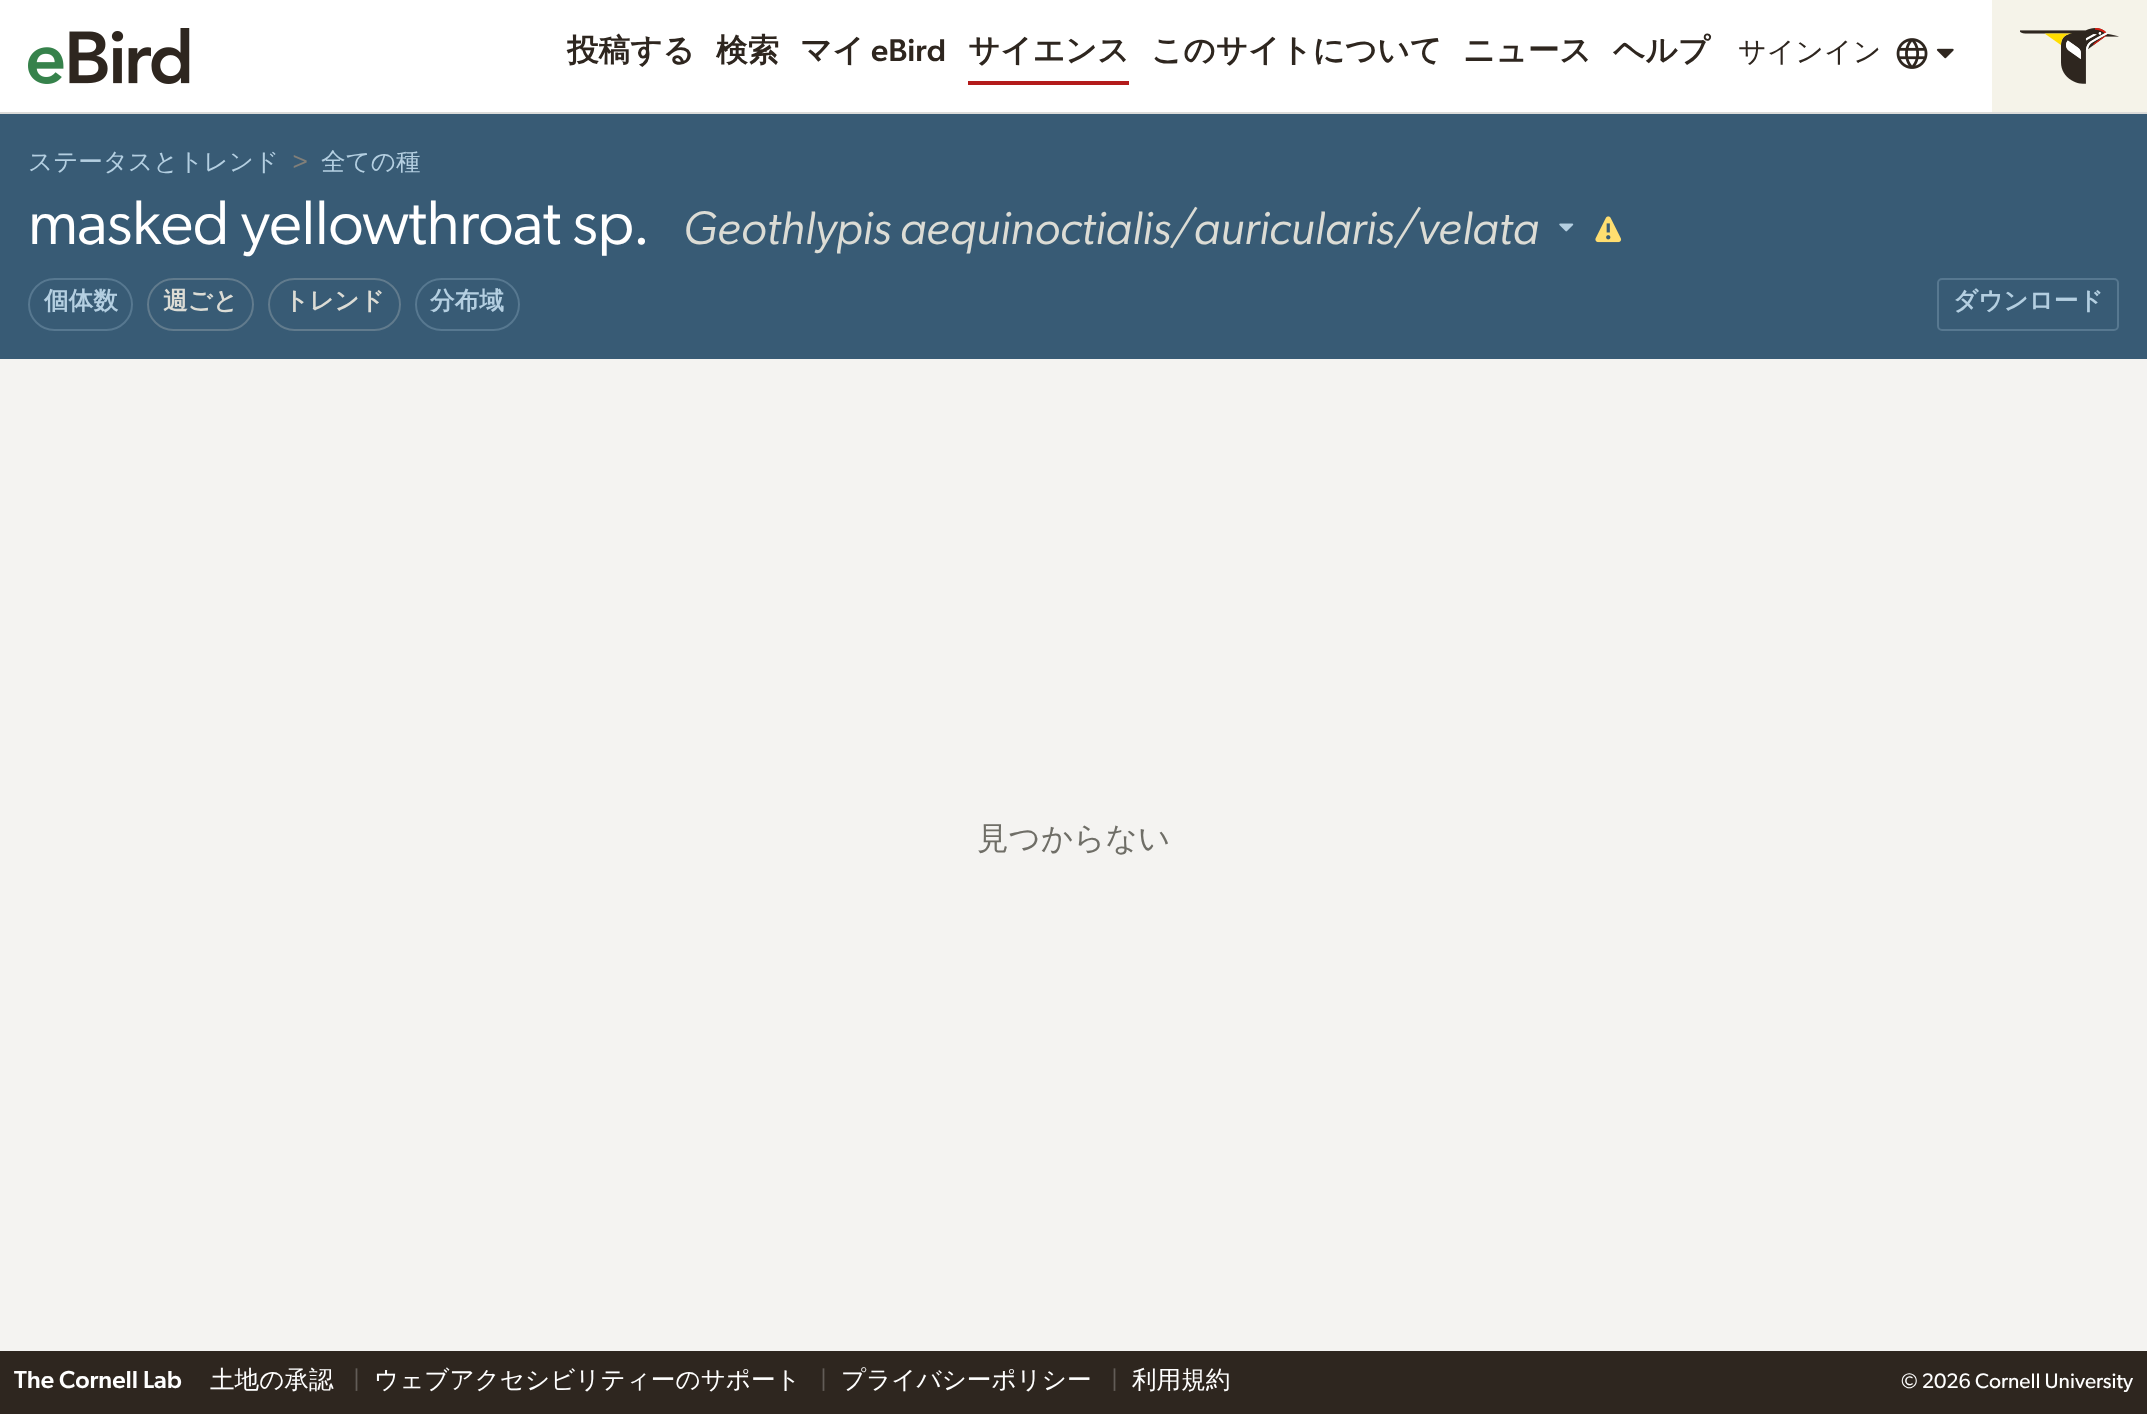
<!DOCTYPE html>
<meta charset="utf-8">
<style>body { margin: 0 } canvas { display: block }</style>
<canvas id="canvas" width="2147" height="1414"></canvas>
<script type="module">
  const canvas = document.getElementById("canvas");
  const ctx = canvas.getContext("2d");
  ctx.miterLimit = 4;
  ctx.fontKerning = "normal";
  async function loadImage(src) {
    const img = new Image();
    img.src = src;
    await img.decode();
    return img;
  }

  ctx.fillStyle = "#ffffff";
  ctx.fillRect(0, 0, 2147, 1414);
  ctx.fillStyle = "#dbdbd9";
  ctx.fillRect(0, 112, 2147, 2);
  ctx.drawImage(await loadImage("img1.png"), 28, 28, 162, 56);
  ctx.font = "bold 31.6px WenQuanYi Zen Hei";
  ctx.fillStyle = "#2e261f";
  ctx.fillText("投稿する", 567, 61);
  ctx.fillText("検索", 716, 61);
  ctx.fillText("マイ", 800, 61);
  ctx.font = "500 31.6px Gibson";
  ctx.fillText("eBird", 871, 61);
  ctx.fillStyle = "#b31b1b";
  ctx.fillRect(968, 81, 161, 4);
  ctx.font = "bold 31.6px WenQuanYi Zen Hei";
  ctx.fillStyle = "#2e261f";
  ctx.fillText("サイエンス", 968, 61);
  ctx.fillText("このサイトについて", 1151, 61);
  ctx.fillText("ニュース", 1463, 61);
  ctx.fillText("ヘルプ", 1613, 61);
  ctx.font = "500 28px WenQuanYi Zen Hei";
  ctx.fillText("サインイン", 1738, 61);
  ctx.drawImage(await loadImage("img2.png"), 1896, 38, 32, 31);
  ctx.drawImage(await loadImage("img3.png"), 1936, 48, 18, 11);
  ctx.fillStyle = "#f5f3e9";
  ctx.fillRect(1992, 0, 155, 112);
  ctx.drawImage(await loadImage("img4.png"), 2020, 28, 99, 56);
  ctx.fillStyle = "#385b75";
  ctx.fillRect(0, 114, 2147, 245);
  ctx.font = "500 24.6px WenQuanYi Zen Hei";
  ctx.fillStyle = "#b4cfe1";
  ctx.fillText("ステータスとトレンド", 28, 170);
  ctx.font = "24.6px Gibson";
  ctx.fillStyle = "#817f79";
  ctx.fillText(">", 292, 170);
  ctx.font = "500 24.6px WenQuanYi Zen Hei";
  ctx.fillStyle = "#b4cfe1";
  ctx.fillText("全ての種", 321, 170);
  ctx.letterSpacing = "-0.6px";
  ctx.font = "63px 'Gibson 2'";
  ctx.fillStyle = "#ffffff";
  ctx.fillText("masked yellowthroat sp.", 28, 244);
  ctx.letterSpacing = "0px";
  ctx.font = "italic 47.25px Gibson";
  ctx.fillStyle = "#dcdcd5";
  ctx.fillText("Geothlypis aequinoctialis/auricularis/velata", 683, 244);
  ctx.drawImage(await loadImage("img5.png"), 1559, 223, 15, 9);
  ctx.drawImage(await loadImage("img6.png"), 1595, 216, 27, 27);
  ctx.beginPath();
  ctx.roundRect(29, 279, 103, 51, 25.5);
  ctx.strokeStyle = "#577890";
  ctx.lineWidth = 2;
  ctx.stroke();
  ctx.font = "bold 24.6px WenQuanYi Zen Hei";
  ctx.fillStyle = "#b4cfe1";
  ctx.fillText("個体数", 44, 309);
  ctx.beginPath();
  ctx.roundRect(148, 279, 105, 51, 25.5);
  ctx.strokeStyle = "#617b8d";
  ctx.stroke();
  ctx.fillStyle = "#dcdcd5";
  ctx.fillText("週ごと", 163, 309);
  ctx.beginPath();
  ctx.roundRect(269, 279, 131, 51, 25.5);
  ctx.stroke();
  ctx.fillText("トレンド", 284, 309);
  ctx.beginPath();
  ctx.roundRect(416, 279, 103, 51, 25.5);
  ctx.strokeStyle = "#577890";
  ctx.stroke();
  ctx.fillStyle = "#b4cfe1";
  ctx.fillText("分布域", 430, 309);
  ctx.beginPath();
  ctx.roundRect(1938, 279, 180, 51, 4);
  ctx.stroke();
  ctx.fillText("ダウンロード", 1953, 309);
  ctx.fillStyle = "#f4f3f1";
  ctx.fillRect(0, 359, 2147, 992);
  ctx.font = "500 31.6px WenQuanYi Zen Hei";
  ctx.fillStyle = "#6f6e67";
  ctx.fillText("見つからない", 977, 849);
  ctx.fillStyle = "#2e261f";
  ctx.fillRect(0, 1351, 2147, 63);
  ctx.font = "500 24.6px Gibson";
  ctx.fillStyle = "#ffffff";
  ctx.fillText("The Cornell Lab", 14, 1388);
  ctx.font = "500 24.6px WenQuanYi Zen Hei";
  ctx.fillText("土地の承認", 210, 1388);
  ctx.font = "24.6px Gibson";
  ctx.fillStyle = "#625c57";
  ctx.fillText("|", 353, 1388);
  ctx.font = "500 24.6px WenQuanYi Zen Hei";
  ctx.fillStyle = "#ffffff";
  ctx.fillText("ウェブアクセシビリティーのサポート", 374, 1388);
  ctx.font = "24.6px Gibson";
  ctx.fillStyle = "#625c57";
  ctx.fillText("|", 820, 1388);
  ctx.font = "500 24.6px WenQuanYi Zen Hei";
  ctx.fillStyle = "#ffffff";
  ctx.fillText("プライバシーポリシー", 841, 1388);
  ctx.font = "24.6px Gibson";
  ctx.fillStyle = "#625c57";
  ctx.fillText("|", 1111, 1388);
  ctx.font = "500 24.6px WenQuanYi Zen Hei";
  ctx.fillStyle = "#ffffff";
  ctx.fillText("利用規約", 1132, 1388);
  ctx.font = "21px Gibson";
  ctx.fillText("© 2026 Cornell University", 1901, 1388);
</script>
